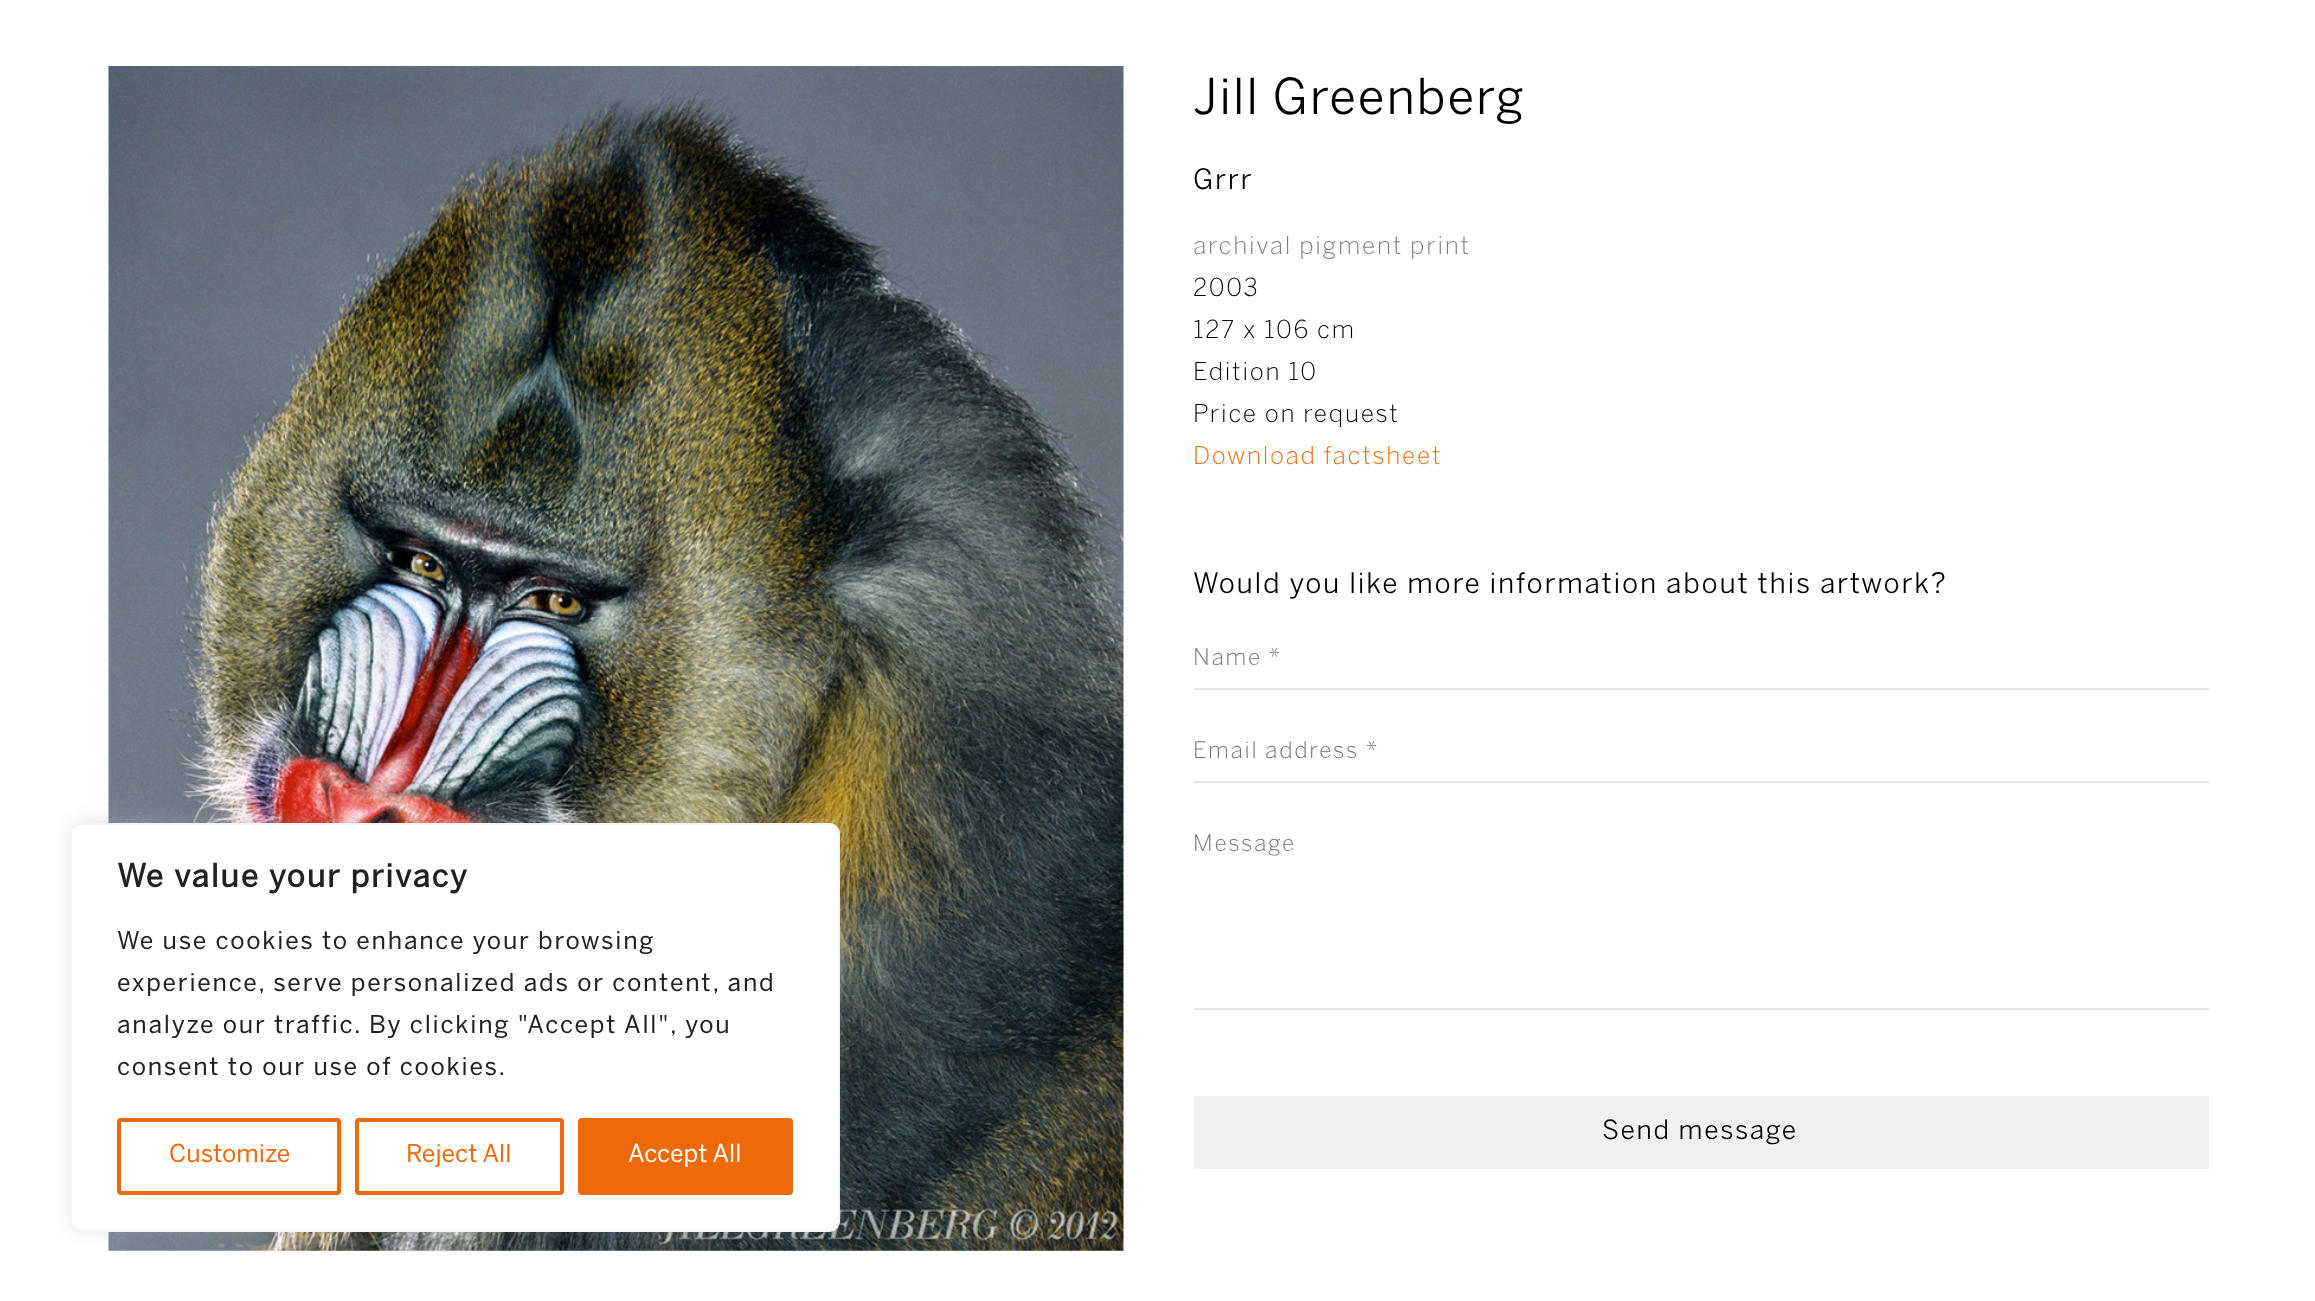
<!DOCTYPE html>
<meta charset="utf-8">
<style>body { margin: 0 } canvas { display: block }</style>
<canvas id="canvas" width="2315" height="1301"></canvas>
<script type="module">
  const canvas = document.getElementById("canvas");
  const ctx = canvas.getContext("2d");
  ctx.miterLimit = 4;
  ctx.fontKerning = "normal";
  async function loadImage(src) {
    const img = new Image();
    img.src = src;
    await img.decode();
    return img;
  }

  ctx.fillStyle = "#ffffff";
  ctx.fillRect(0, 0, 2315, 1301);
  ctx.drawImage(await loadImage("img1.png"), 108, 66, 1016, 1185);
  ctx.fillStyle = "rgba(172, 171, 171, 0.3)";
  ctx.filter = "blur(9px)";
  ctx.beginPath();
  ctx.roundRect(70, 821, 770, 409, 11);
  ctx.fill();
  ctx.filter = "none";
  ctx.fillStyle = "#ffffff";
  ctx.beginPath();
  ctx.roundRect(71, 824, 768, 407, 10);
  ctx.fill();
  ctx.strokeStyle = "#f4f4f4";
  ctx.lineWidth = 2;
  ctx.stroke();
  ctx.letterSpacing = "1.75px";
  ctx.font = "bold 31.5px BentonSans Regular";
  ctx.fillStyle = "#212121";
  ctx.fillText("We value your privacy", 117, 887);
  ctx.font = "24.5px BentonSans Regular";
  ctx.fillText("We use cookies to enhance your browsing", 117, 949);
  ctx.fillText("experience, serve personalized ads or content, and", 117, 991);
  ctx.fillText("analyze our traffic. By clicking \"Accept All\", you", 117, 1033);
  ctx.fillText("consent to our use of cookies.", 117, 1075);
  ctx.beginPath();
  ctx.roundRect(119, 1120, 220, 73, 2);
  ctx.strokeStyle = "#ee6a08";
  ctx.lineWidth = 4;
  ctx.stroke();
  ctx.letterSpacing = "0px";
  ctx.fillStyle = "#ee6a08";
  ctx.fillText("Customize", 169, 1162);
  ctx.beginPath();
  ctx.roundRect(357, 1120, 205, 73, 2);
  ctx.stroke();
  ctx.fillText("Reject All", 406, 1162);
  ctx.beginPath();
  ctx.roundRect(580, 1120, 211, 73, 2);
  ctx.fill();
  ctx.stroke();
  ctx.fillStyle = "#ffffff";
  ctx.fillText("Accept All", 628, 1162);
  ctx.letterSpacing = "1.75px";
  ctx.font = "49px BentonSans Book";
  ctx.fillStyle = "#000000";
  ctx.fillText("Jill Greenberg", 1193, 114);
  ctx.font = "28px BentonSans Book";
  ctx.fillText("Grrr", 1193, 189);
  ctx.font = "300 24.5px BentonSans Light";
  ctx.fillStyle = "#7e7e7e";
  ctx.fillText("archival pigment print", 1193, 254);
  ctx.fillStyle = "#000000";
  ctx.fillText("2003", 1193, 296);
  ctx.fillText("127 x 106 cm", 1193, 338);
  ctx.fillText("Edition 10", 1193, 380);
  ctx.fillText("Price on request", 1193, 422);
  ctx.fillStyle = "#ee6a08";
  ctx.fillText("Download factsheet", 1193, 464);
  ctx.font = "28px BentonSans Book";
  ctx.fillStyle = "#000000";
  ctx.fillText("Would you like more information about this artwork?", 1193, 593);
  ctx.fillStyle = "#e4e4e8";
  ctx.fillRect(1194, 688, 1015, 2);
  ctx.font = "300 22.75px BentonSans Light";
  ctx.fillStyle = "#757575";
  ctx.fillText("Name *", 1193, 665);
  ctx.fillStyle = "#e4e4e8";
  ctx.fillRect(1194, 781, 1015, 2);
  ctx.fillStyle = "#757575";
  ctx.fillText("Email address *", 1193, 758);
  ctx.fillStyle = "#e4e4e8";
  ctx.fillRect(1194, 1008, 1015, 2);
  ctx.fillStyle = "#757575";
  ctx.fillText("Message", 1193, 851);
  ctx.fillStyle = "#f1f1f3";
  ctx.fillRect(1194, 1096, 1015, 73);
  ctx.font = "26.25px BentonSans Book";
  ctx.fillStyle = "#000000";
  ctx.fillText("Send message", 1602, 1139);
</script>
